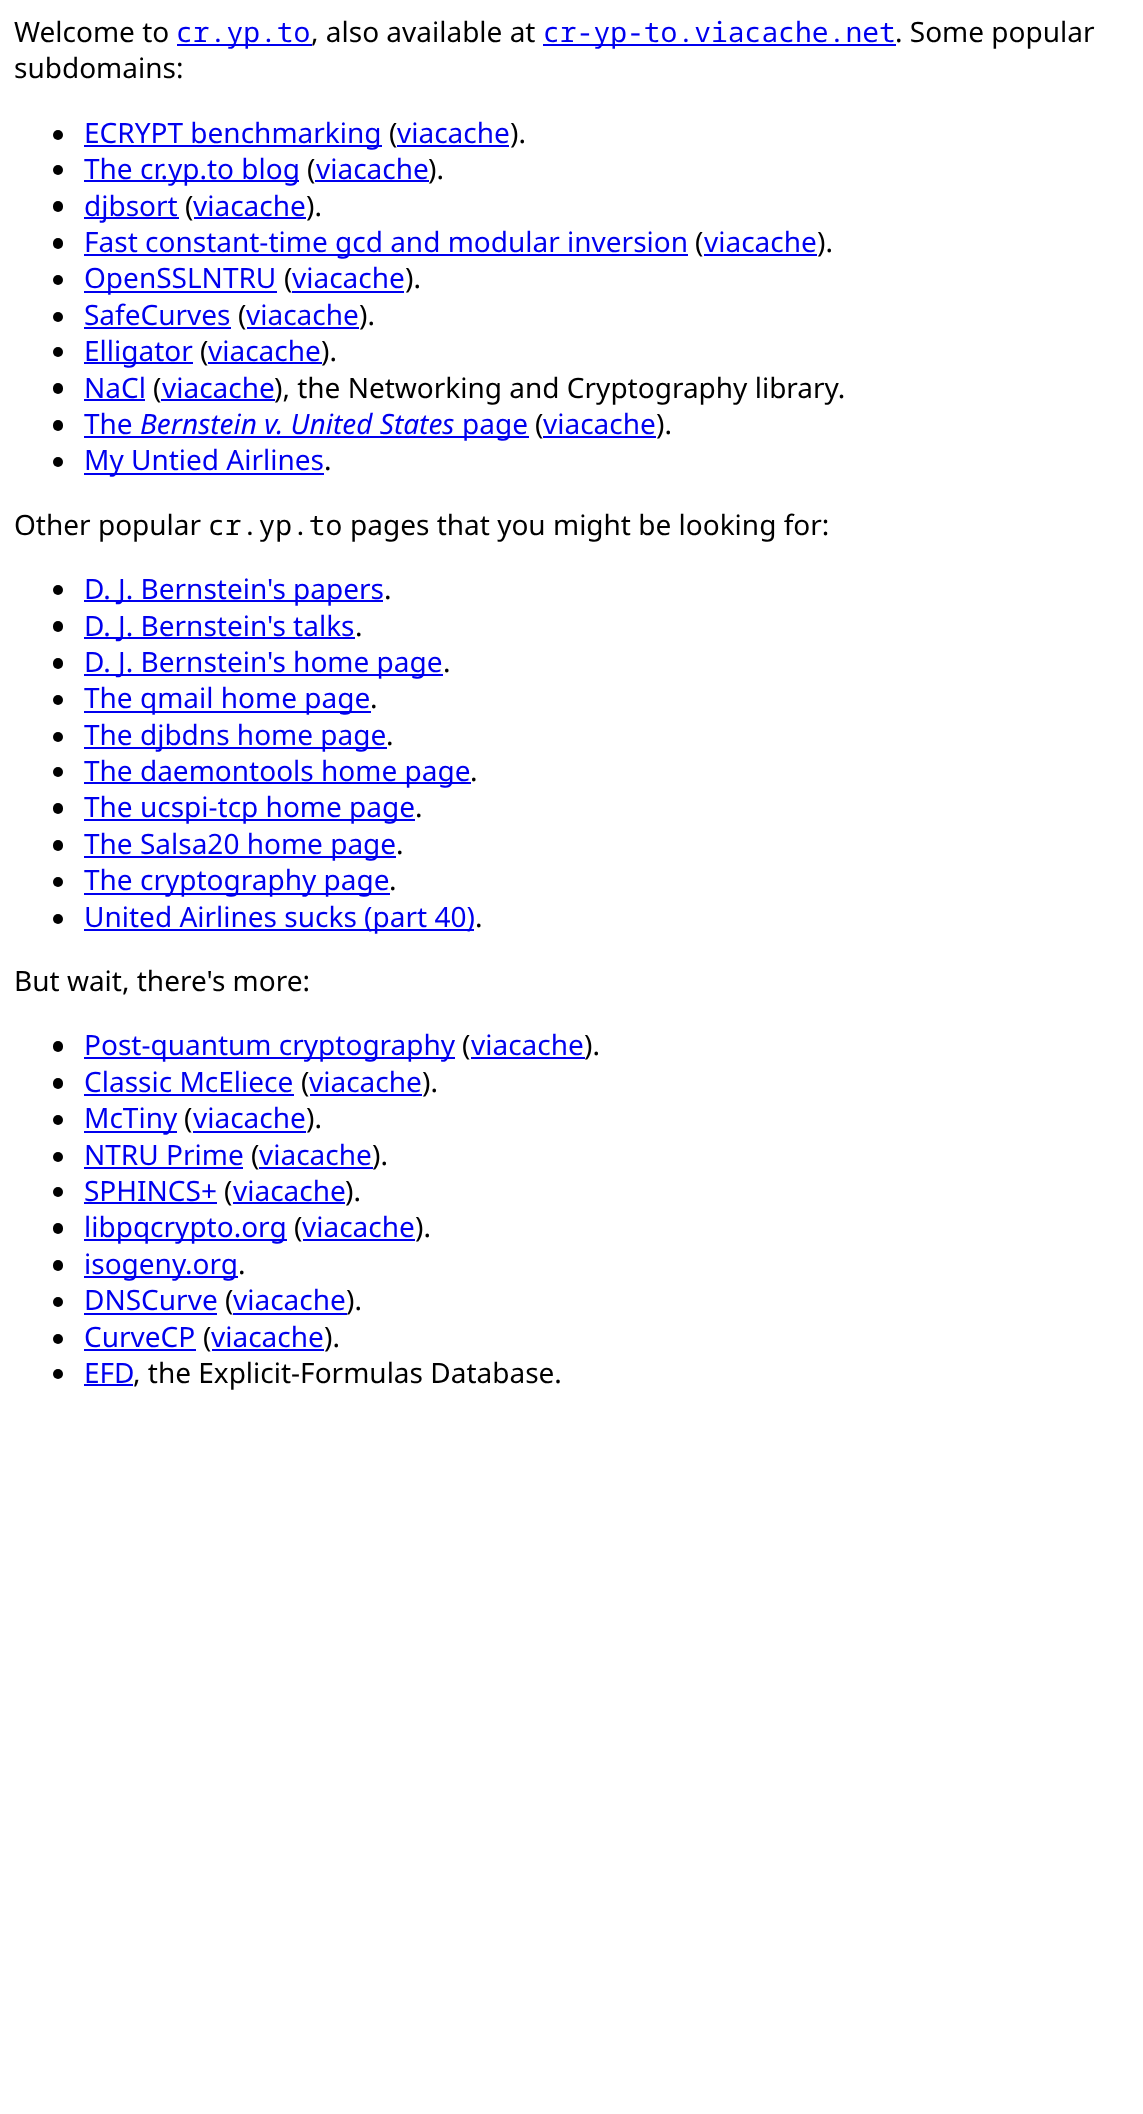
<!DOCTYPE html>
<meta charset="utf-8">
<style>body { margin: 0 } canvas { display: block }</style>
<canvas id="canvas" width="1143" height="2114"></canvas>
<script type="module">
  const canvas = document.getElementById("canvas");
  const ctx = canvas.getContext("2d");
  ctx.miterLimit = 4;
  ctx.fontKerning = "normal";

  ctx.fillStyle = "#ffffff";
  ctx.fillRect(0, 0, 1143, 2114);
  ctx.font = "28px Noto Sans";
  ctx.fillStyle = "#000000";
  ctx.fillText("Welcome to", 14, 42);
  ctx.fillStyle = "#0000ee";
  ctx.fillRect(177, 44, 135, 2);
  ctx.font = "28px Noto Sans Mono";
  ctx.fillText("cr.yp.to", 176, 42);
  ctx.font = "28px Noto Sans";
  ctx.fillStyle = "#000000";
  ctx.fillText(", also available at", 311, 42);
  ctx.fillStyle = "#0000ee";
  ctx.fillRect(543, 44, 353, 2);
  ctx.font = "28px Noto Sans Mono";
  ctx.fillText("cr-yp-to.viacache.net", 543, 42);
  ctx.font = "28px Noto Sans";
  ctx.fillStyle = "#000000";
  ctx.fillText(". Some popular", 895, 42);
  ctx.fillText("subdomains:", 14, 78);
  ctx.beginPath();
  ctx.arc(58, 135, 5, 0, Math.PI * 2);
  ctx.fill();
  ctx.fillStyle = "#0000ee";
  ctx.fillRect(84, 145, 298, 2);
  ctx.fillText("ECRYPT benchmarking", 84, 143);
  ctx.fillStyle = "#000000";
  ctx.fillText("(", 389, 143);
  ctx.fillStyle = "#0000ee";
  ctx.fillText("viacache", 397, 143);
  ctx.fillRect(397, 145, 112, 2);
  ctx.fillStyle = "#000000";
  ctx.fillText(").", 510, 143);
  ctx.beginPath();
  ctx.arc(58, 170, 5, 0, Math.PI * 2);
  ctx.fill();
  ctx.fillStyle = "#0000ee";
  ctx.fillRect(84, 180, 215, 2);
  ctx.fillText("The cr.yp.to blog", 84, 179);
  ctx.fillStyle = "#000000";
  ctx.fillText("(", 307, 179);
  ctx.fillStyle = "#0000ee";
  ctx.fillText("viacache", 316, 179);
  ctx.fillRect(315, 180, 114, 2);
  ctx.fillStyle = "#000000";
  ctx.fillText(").", 428, 179);
  ctx.beginPath();
  ctx.roundRect(53, 201, 10, 11, 5);
  ctx.fill();
  ctx.fillStyle = "#0000ee";
  ctx.fillRect(84, 217, 95, 2);
  ctx.fillText("djbsort", 84, 216);
  ctx.fillStyle = "#000000";
  ctx.fillText("(", 185, 216);
  ctx.fillStyle = "#0000ee";
  ctx.fillText("viacache", 193, 216);
  ctx.fillRect(194, 217, 112, 2);
  ctx.fillStyle = "#000000";
  ctx.fillText(").", 306, 216);
  ctx.beginPath();
  ctx.roundRect(53, 238, 10, 11, 5);
  ctx.fill();
  ctx.fillStyle = "#0000ee";
  ctx.fillRect(84, 254, 604, 2);
  ctx.fillText("Fast constant-time gcd and modular inversion", 84, 252);
  ctx.fillStyle = "#000000";
  ctx.fillText("(", 695, 252);
  ctx.fillStyle = "#0000ee";
  ctx.fillText("viacache", 704, 252);
  ctx.fillRect(704, 254, 113, 2);
  ctx.fillStyle = "#000000";
  ctx.fillText(").", 817, 252);
  ctx.beginPath();
  ctx.arc(58, 280, 5, 0, Math.PI * 2);
  ctx.fill();
  ctx.fillStyle = "#0000ee";
  ctx.fillRect(84, 291, 193, 2);
  ctx.fillText("OpenSSLNTRU", 84, 288);
  ctx.fillStyle = "#000000";
  ctx.fillText("(", 284, 288);
  ctx.fillStyle = "#0000ee";
  ctx.fillText("viacache", 292, 288);
  ctx.fillRect(292, 291, 112, 2);
  ctx.fillStyle = "#000000";
  ctx.fillText(").", 405, 288);
  ctx.beginPath();
  ctx.arc(58, 317, 5, 0, Math.PI * 2);
  ctx.fill();
  ctx.fillStyle = "#0000ee";
  ctx.fillText("SafeCurves", 84, 325);
  ctx.fillRect(84, 327, 147, 2);
  ctx.fillStyle = "#000000";
  ctx.fillText("(", 238, 325);
  ctx.fillStyle = "#0000ee";
  ctx.fillText("viacache", 246, 325);
  ctx.fillRect(247, 327, 112, 2);
  ctx.fillStyle = "#000000";
  ctx.fillText(").", 359, 325);
  ctx.beginPath();
  ctx.arc(58, 352, 5, 0, Math.PI * 2);
  ctx.fill();
  ctx.fillStyle = "#0000ee";
  ctx.fillRect(84, 362, 109, 2);
  ctx.fillText("Elligator", 84, 361);
  ctx.fillStyle = "#000000";
  ctx.fillText("(", 200, 361);
  ctx.fillStyle = "#0000ee";
  ctx.fillText("viacache", 208, 361);
  ctx.fillRect(208, 362, 114, 2);
  ctx.fillStyle = "#000000";
  ctx.fillText(").", 321, 361);
  ctx.beginPath();
  ctx.roundRect(53, 383, 10, 11, 5);
  ctx.fill();
  ctx.fillStyle = "#0000ee";
  ctx.fillText("NaCl", 84, 398);
  ctx.fillRect(84, 399, 61, 2);
  ctx.fillStyle = "#000000";
  ctx.fillText("(", 153, 398);
  ctx.fillStyle = "#0000ee";
  ctx.fillText("viacache", 162, 398);
  ctx.fillRect(161, 399, 114, 2);
  ctx.fillStyle = "#000000";
  ctx.fillText("), the Networking and Cryptography library.", 274, 398);
  ctx.beginPath();
  ctx.roundRect(53, 420, 10, 11, 5);
  ctx.fill();
  ctx.fillStyle = "#0000ee";
  ctx.fillText("The", 84, 434);
  ctx.font = "italic 28px Noto Sans";
  ctx.fillText("Bernstein v. United States", 140, 434);
  ctx.fillRect(84, 436, 445, 2);
  ctx.font = "28px Noto Sans";
  ctx.fillText("page", 462, 434);
  ctx.fillStyle = "#000000";
  ctx.fillText("(", 535, 434);
  ctx.fillStyle = "#0000ee";
  ctx.fillText("viacache", 543, 434);
  ctx.fillRect(543, 436, 113, 2);
  ctx.fillStyle = "#000000";
  ctx.fillText(").", 656, 434);
  ctx.beginPath();
  ctx.arc(58, 462, 5, 0, Math.PI * 2);
  ctx.fill();
  ctx.fillStyle = "#0000ee";
  ctx.fillRect(84, 473, 240, 2);
  ctx.fillText("My Untied Airlines", 84, 470);
  ctx.fillStyle = "#000000";
  ctx.fillText(".", 324, 470);
  ctx.fillText("Other popular", 14, 535);
  ctx.font = "28px Noto Sans Mono";
  ctx.fillText("cr.yp.to", 208, 535);
  ctx.font = "28px Noto Sans";
  ctx.fillText("pages that you might be looking for:", 350, 535);
  ctx.beginPath();
  ctx.arc(58, 590, 5, 0, Math.PI * 2);
  ctx.fill();
  ctx.fillStyle = "#0000ee";
  ctx.fillRect(84, 600, 299, 2);
  ctx.fillText("D. J. Bernstein's papers", 84, 599);
  ctx.fillStyle = "#000000";
  ctx.fillText(".", 384, 599);
  ctx.beginPath();
  ctx.roundRect(53, 621, 10, 11, 5);
  ctx.fill();
  ctx.fillStyle = "#0000ee";
  ctx.fillRect(84, 637, 271, 2);
  ctx.fillText("D. J. Bernstein's talks", 84, 636);
  ctx.fillStyle = "#000000";
  ctx.fillText(".", 355, 636);
  ctx.beginPath();
  ctx.roundRect(53, 658, 10, 11, 5);
  ctx.fill();
  ctx.fillStyle = "#0000ee";
  ctx.fillRect(84, 674, 359, 2);
  ctx.fillText("D. J. Bernstein's home page", 84, 672);
  ctx.fillStyle = "#000000";
  ctx.fillText(".", 443, 672);
  ctx.beginPath();
  ctx.arc(58, 700, 5, 0, Math.PI * 2);
  ctx.fill();
  ctx.fillStyle = "#0000ee";
  ctx.fillRect(84, 711, 287, 2);
  ctx.fillText("The qmail home page", 84, 708);
  ctx.fillStyle = "#000000";
  ctx.fillText(".", 370, 708);
  ctx.beginPath();
  ctx.arc(58, 737, 5, 0, Math.PI * 2);
  ctx.fill();
  ctx.fillStyle = "#0000ee";
  ctx.fillRect(84, 747, 303, 2);
  ctx.fillText("The djbdns home page", 84, 745);
  ctx.fillStyle = "#000000";
  ctx.fillText(".", 386, 745);
  ctx.beginPath();
  ctx.arc(58, 772, 5, 0, Math.PI * 2);
  ctx.fill();
  ctx.fillStyle = "#0000ee";
  ctx.fillRect(84, 782, 387, 2);
  ctx.fillText("The daemontools home page", 84, 781);
  ctx.fillStyle = "#000000";
  ctx.fillText(".", 470, 781);
  ctx.beginPath();
  ctx.roundRect(53, 803, 10, 11, 5);
  ctx.fill();
  ctx.fillStyle = "#0000ee";
  ctx.fillRect(84, 819, 331, 2);
  ctx.fillText("The ucspi-tcp home page", 84, 817);
  ctx.fillStyle = "#000000";
  ctx.fillText(".", 415, 817);
  ctx.beginPath();
  ctx.roundRect(53, 840, 10, 11, 5);
  ctx.fill();
  ctx.fillStyle = "#0000ee";
  ctx.fillRect(84, 856, 312, 2);
  ctx.fillText("The Salsa20 home page", 84, 854);
  ctx.fillStyle = "#000000";
  ctx.fillText(".", 396, 854);
  ctx.beginPath();
  ctx.arc(58, 882, 5, 0, Math.PI * 2);
  ctx.fill();
  ctx.fillStyle = "#0000ee";
  ctx.fillRect(84, 893, 306, 2);
  ctx.fillText("The cryptography page", 84, 890);
  ctx.fillStyle = "#000000";
  ctx.fillText(".", 389, 890);
  ctx.beginPath();
  ctx.arc(58, 919, 5, 0, Math.PI * 2);
  ctx.fill();
  ctx.fillStyle = "#0000ee";
  ctx.fillRect(84, 929, 390, 2);
  ctx.fillText("United Airlines sucks (part 40)", 84, 927);
  ctx.fillStyle = "#000000";
  ctx.fillText(".", 475, 927);
  ctx.fillText("But wait, there's more:", 14, 991);
  ctx.beginPath();
  ctx.roundRect(53, 1041, 10, 11, 5);
  ctx.fill();
  ctx.fillStyle = "#0000ee";
  ctx.fillRect(84, 1057, 371, 2);
  ctx.fillText("Post-quantum cryptography", 84, 1055);
  ctx.fillStyle = "#000000";
  ctx.fillText("(", 462, 1055);
  ctx.fillStyle = "#0000ee";
  ctx.fillText("viacache", 471, 1055);
  ctx.fillRect(471, 1057, 114, 2);
  ctx.fillStyle = "#000000";
  ctx.fillText(").", 584, 1055);
  ctx.beginPath();
  ctx.roundRect(53, 1078, 10, 11, 5);
  ctx.fill();
  ctx.fillStyle = "#0000ee";
  ctx.fillText("Classic McEliece", 84, 1092);
  ctx.fillRect(84, 1094, 210, 2);
  ctx.fillStyle = "#000000";
  ctx.fillText("(", 301, 1092);
  ctx.fillStyle = "#0000ee";
  ctx.fillText("viacache", 309, 1092);
  ctx.fillRect(310, 1094, 112, 2);
  ctx.fillStyle = "#000000";
  ctx.fillText(").", 422, 1092);
  ctx.beginPath();
  ctx.arc(58, 1120, 5, 0, Math.PI * 2);
  ctx.fill();
  ctx.fillStyle = "#0000ee";
  ctx.fillRect(84, 1131, 93, 2);
  ctx.fillText("McTiny", 84, 1128);
  ctx.fillStyle = "#000000";
  ctx.fillText("(", 184, 1128);
  ctx.fillStyle = "#0000ee";
  ctx.fillText("viacache", 193, 1128);
  ctx.fillRect(193, 1131, 113, 2);
  ctx.fillStyle = "#000000";
  ctx.fillText(").", 306, 1128);
  ctx.beginPath();
  ctx.arc(58, 1157, 5, 0, Math.PI * 2);
  ctx.fill();
  ctx.fillStyle = "#0000ee";
  ctx.fillText("NTRU Prime", 84, 1165);
  ctx.fillRect(84, 1167, 159, 2);
  ctx.fillStyle = "#000000";
  ctx.fillText("(", 251, 1165);
  ctx.fillStyle = "#0000ee";
  ctx.fillText("viacache", 259, 1165);
  ctx.fillRect(259, 1167, 114, 2);
  ctx.fillStyle = "#000000";
  ctx.fillText(").", 372, 1165);
  ctx.beginPath();
  ctx.arc(58, 1192, 5, 0, Math.PI * 2);
  ctx.fill();
  ctx.fillStyle = "#0000ee";
  ctx.fillText("SPHINCS+", 84, 1201);
  ctx.fillRect(84, 1202, 133, 2);
  ctx.fillStyle = "#000000";
  ctx.fillText("(", 224, 1201);
  ctx.fillStyle = "#0000ee";
  ctx.fillText("viacache", 233, 1201);
  ctx.fillRect(233, 1202, 112, 2);
  ctx.fillStyle = "#000000";
  ctx.fillText(").", 345, 1201);
  ctx.beginPath();
  ctx.roundRect(53, 1223, 10, 11, 5);
  ctx.fill();
  ctx.fillStyle = "#0000ee";
  ctx.fillRect(84, 1239, 203, 2);
  ctx.fillText("libpqcrypto.org", 84, 1237);
  ctx.fillStyle = "#000000";
  ctx.fillText("(", 294, 1237);
  ctx.fillStyle = "#0000ee";
  ctx.fillText("viacache", 302, 1237);
  ctx.fillRect(303, 1239, 112, 2);
  ctx.fillStyle = "#000000";
  ctx.fillText(").", 415, 1237);
  ctx.beginPath();
  ctx.roundRect(53, 1260, 10, 11, 5);
  ctx.fill();
  ctx.fillStyle = "#0000ee";
  ctx.fillRect(84, 1276, 154, 2);
  ctx.fillText("isogeny.org", 84, 1274);
  ctx.fillStyle = "#000000";
  ctx.fillText(".", 238, 1274);
  ctx.beginPath();
  ctx.arc(58, 1302, 5, 0, Math.PI * 2);
  ctx.fill();
  ctx.fillStyle = "#0000ee";
  ctx.fillText("DNSCurve", 84, 1310);
  ctx.fillRect(84, 1313, 133, 2);
  ctx.fillStyle = "#000000";
  ctx.fillText("(", 225, 1310);
  ctx.fillStyle = "#0000ee";
  ctx.fillText("viacache", 233, 1310);
  ctx.fillRect(233, 1313, 114, 2);
  ctx.fillStyle = "#000000";
  ctx.fillText(").", 346, 1310);
  ctx.beginPath();
  ctx.arc(58, 1339, 5, 0, Math.PI * 2);
  ctx.fill();
  ctx.fillStyle = "#0000ee";
  ctx.fillText("CurveCP", 84, 1347);
  ctx.fillRect(84, 1349, 112, 2);
  ctx.fillStyle = "#000000";
  ctx.fillText("(", 203, 1347);
  ctx.fillStyle = "#0000ee";
  ctx.fillText("viacache", 211, 1347);
  ctx.fillRect(212, 1349, 112, 2);
  ctx.fillStyle = "#000000";
  ctx.fillText(").", 324, 1347);
  ctx.beginPath();
  ctx.arc(58, 1374, 5, 0, Math.PI * 2);
  ctx.fill();
  ctx.fillStyle = "#0000ee";
  ctx.fillText("EFD", 84, 1383);
  ctx.fillRect(84, 1384, 49, 2);
  ctx.fillStyle = "#000000";
  ctx.fillText(", the Explicit-Formulas Database.", 133, 1383);
</script>
